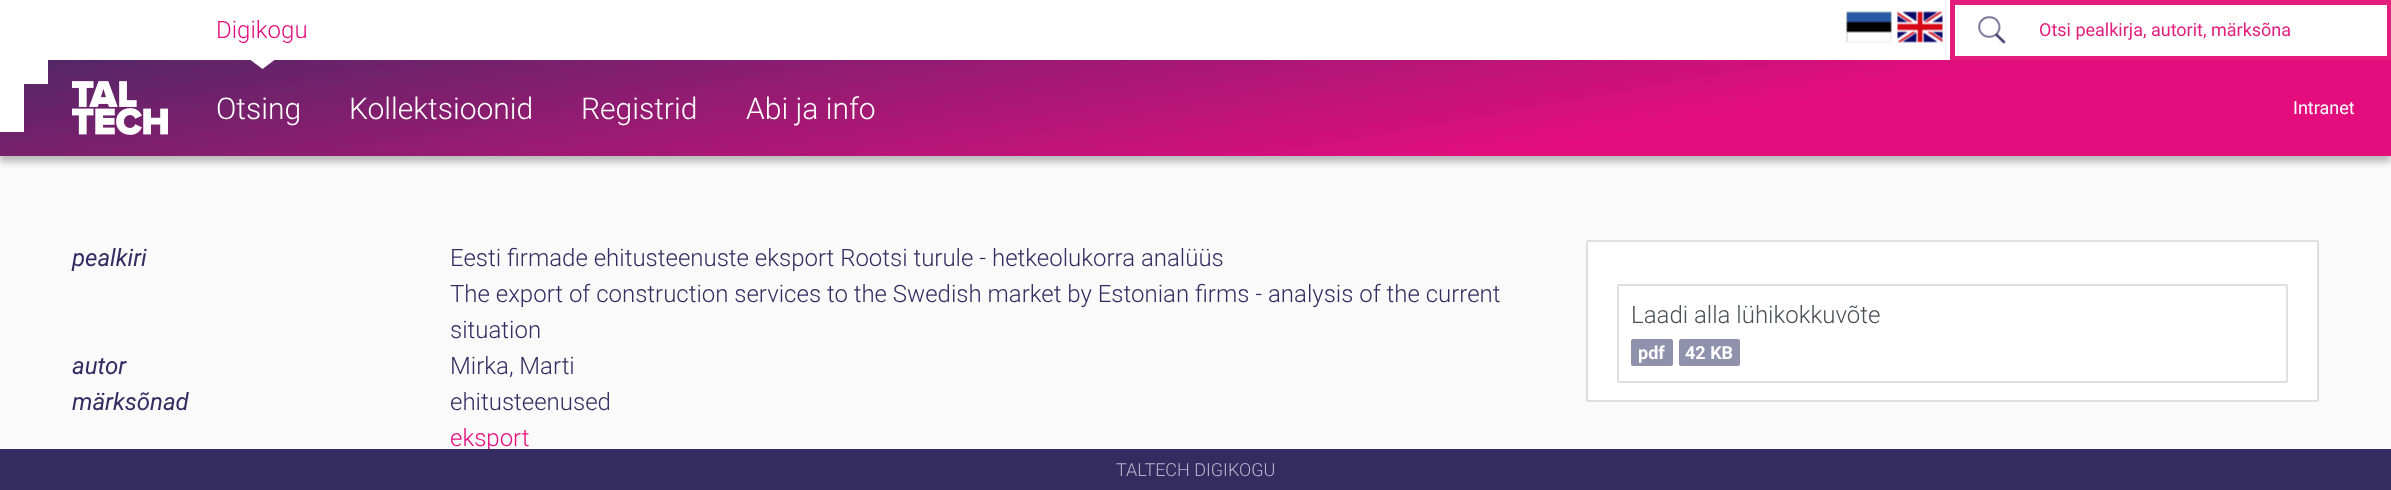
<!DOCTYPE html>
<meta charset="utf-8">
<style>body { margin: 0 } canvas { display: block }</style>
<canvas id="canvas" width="2391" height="490"></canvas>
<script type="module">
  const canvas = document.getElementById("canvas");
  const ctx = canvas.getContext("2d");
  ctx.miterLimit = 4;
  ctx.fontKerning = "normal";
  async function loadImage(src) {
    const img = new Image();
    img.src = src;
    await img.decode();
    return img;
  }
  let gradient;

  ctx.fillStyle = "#fbfafb";
  ctx.fillRect(0, 0, 2391, 490);
  ctx.fillStyle = "#ffffff";
  ctx.fillRect(0, 0, 1950, 60);
  ctx.font = "300 24px Roboto";
  ctx.fillStyle = "#e40d7e";
  ctx.fillText("Digikogu", 216, 38);
  ctx.fillStyle = "rgba(0, 0, 0, 0.25)";
  ctx.filter = "blur(3px)";
  ctx.beginPath();
  ctx.rect(0, 66, 2391, 96);
  ctx.fill();
  ctx.filter = "none";
  gradient = ctx.createLinearGradient(1151, -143, 1240, 359);
  gradient.addColorStop(0, "#512766");
  gradient.addColorStop(0.7, "#e40d7e");
  ctx.fillStyle = gradient;
  ctx.fillRect(0, 60, 2391, 96);
  ctx.fillStyle = "#ffffff";
  ctx.beginPath();
  ctx.moveTo(250.5, 60);
  ctx.lineTo(274.5, 60);
  ctx.lineTo(262.5, 69);
  ctx.closePath();
  ctx.fill();
  ctx.drawImage(await loadImage("img1.png"), 1846, 11, 46, 32);
  ctx.drawImage(await loadImage("img2.png"), 1897, 11, 46, 32);
  ctx.fillStyle = "#e41d7d";
  ctx.fillRect(1950, 0, 441, 60);
  ctx.fillStyle = "#ffffff";
  ctx.fillRect(1955, 5, 432, 51);
  ctx.drawImage(await loadImage("img3.png"), 1978, 16, 28, 28);
  ctx.font = "18px Roboto";
  ctx.fillStyle = "#e41d7d";
  ctx.fillText("Otsi pealkirja, autorit, märksõna", 2039, 36);
  ctx.fillStyle = "#ffffff";
  ctx.fillRect(0, 60, 48, 24);
  ctx.fillRect(0, 84, 24, 48);
  ctx.drawImage(await loadImage("img4.png"), 72, 81, 96, 54);
  ctx.font = "300 30px Roboto";
  ctx.fillText("Otsing", 216, 119);
  ctx.fillText("Kollektsioonid", 349, 119);
  ctx.fillText("Registrid", 581, 119);
  ctx.fillText("Abi ja info", 746, 119);
  ctx.font = "18px Roboto";
  ctx.fillText("Intranet", 2293, 114);
  ctx.font = "italic 24px Roboto";
  ctx.fillStyle = "#342c61";
  ctx.fillText("pealkiri", 72, 266);
  ctx.font = "300 24px Roboto";
  ctx.fillText("Eesti firmade ehitusteenuste eksport Rootsi turule - hetkeolukorra analüüs", 450, 266);
  ctx.fillText("The export of construction services to the Swedish market by Estonian firms - analysis of the current", 450, 302);
  ctx.fillText("situation", 450, 338);
  ctx.font = "italic 24px Roboto";
  ctx.fillText("autor", 72, 374);
  ctx.font = "300 24px Roboto";
  ctx.fillText("Mirka, Marti", 450, 374);
  ctx.font = "italic 24px Roboto";
  ctx.fillText("märksõnad", 72, 410);
  ctx.font = "300 24px Roboto";
  ctx.fillText("ehitusteenused", 450, 410);
  ctx.fillStyle = "#e40d7e";
  ctx.fillText("eksport", 450, 446);
  ctx.fillStyle = "#ffffff";
  ctx.beginPath();
  ctx.roundRect(1587, 241, 731, 160, 1);
  ctx.fill();
  ctx.strokeStyle = "#dfdfdf";
  ctx.lineWidth = 2;
  ctx.stroke();
  ctx.beginPath();
  ctx.roundRect(1618, 285, 669, 97, 1);
  ctx.stroke();
  ctx.fillStyle = "#495057";
  ctx.fillText("Laadi alla lühikokkuvõte", 1631, 323);
  ctx.fillStyle = "#9092ad";
  ctx.beginPath();
  ctx.roundRect(1631, 339, 42, 27, 2);
  ctx.fill();
  ctx.font = "bold 18px Roboto";
  ctx.fillStyle = "#ffffff";
  ctx.fillText("pdf", 1638, 359);
  ctx.fillStyle = "#9092ad";
  ctx.beginPath();
  ctx.roundRect(1679, 339, 61, 27, 2);
  ctx.fill();
  ctx.fillStyle = "#ffffff";
  ctx.fillText("42 KB", 1685, 359);
  ctx.fillStyle = "#342c61";
  ctx.fillRect(0, 449, 2391, 41);
  ctx.font = "300 18px Roboto";
  ctx.fillStyle = "#b8b5c8";
  ctx.fillText("TALTECH DIGIKOGU", 1116, 476);
</script>
